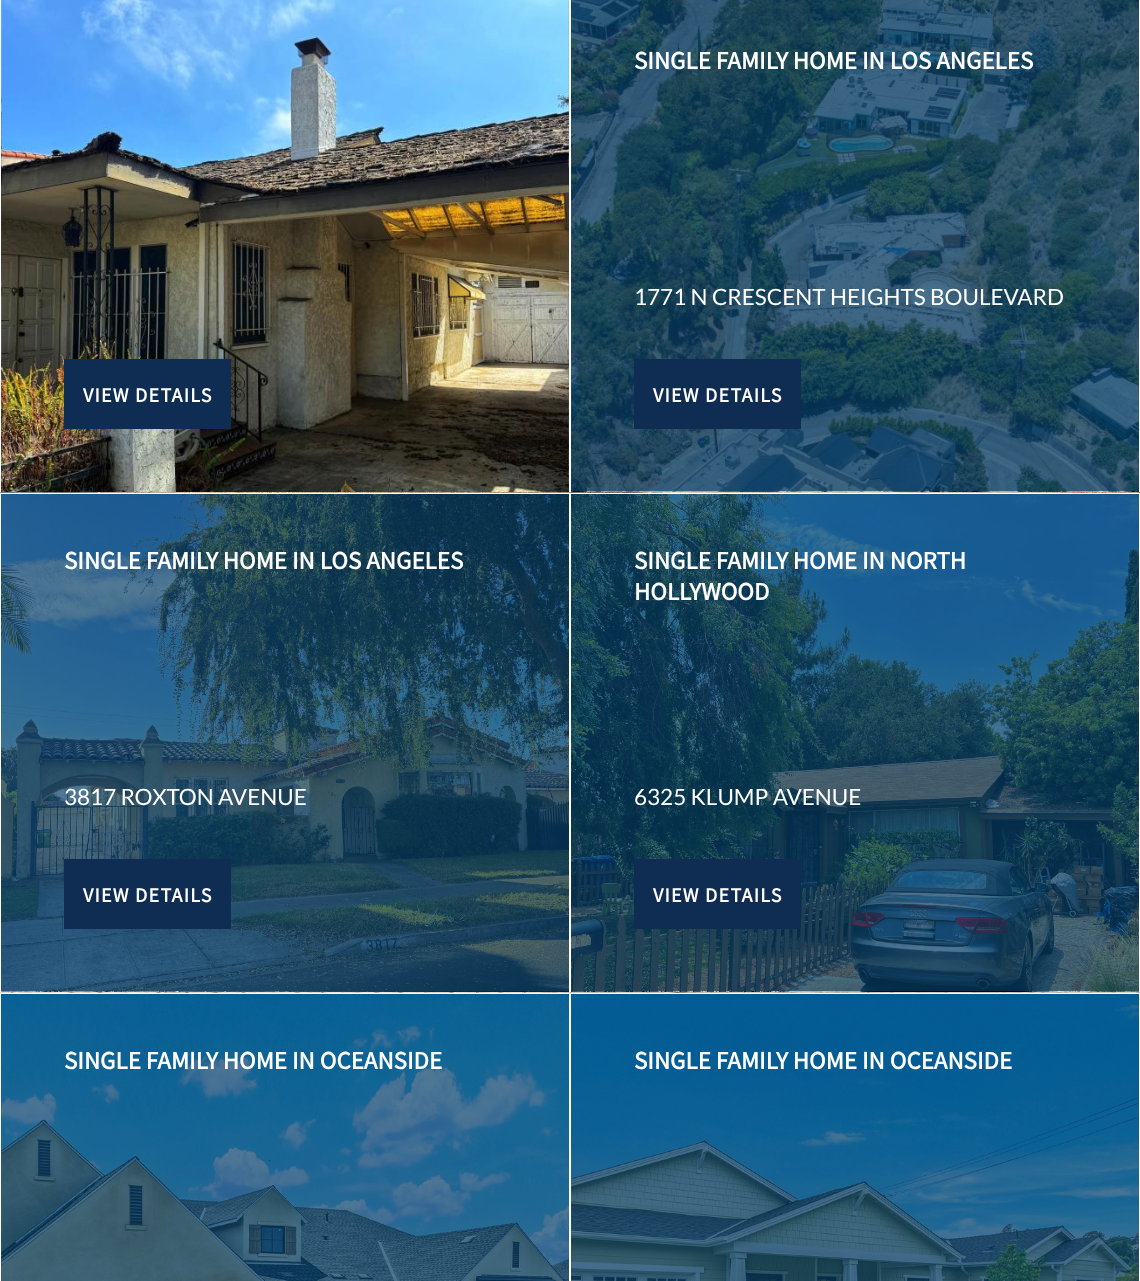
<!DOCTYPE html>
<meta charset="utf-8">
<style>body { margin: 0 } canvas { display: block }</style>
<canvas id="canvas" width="1140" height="1281"></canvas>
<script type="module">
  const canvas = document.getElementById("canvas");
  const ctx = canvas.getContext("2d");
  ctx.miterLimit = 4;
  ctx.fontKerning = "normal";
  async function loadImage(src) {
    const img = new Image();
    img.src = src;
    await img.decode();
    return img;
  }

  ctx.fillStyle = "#ffffff";
  ctx.fillRect(0, 0, 1140, 1281);
  ctx.drawImage(await loadImage("img1.png"), 1, 0, 568, 492);
  ctx.fillStyle = "#0f2d52";
  ctx.fillRect(64, 359, 167, 70);
  ctx.letterSpacing = "1.25px";
  ctx.font = "bold 20px Source Sans Pro";
  ctx.fillStyle = "#ffffff";
  ctx.fillText("VIEW DETAILS", 83, 402);
  ctx.drawImage(await loadImage("img2.png"), 571, 0, 568, 492);
  ctx.letterSpacing = "0px";
  ctx.font = "bold 25px Source Sans Pro";
  ctx.fillText("SINGLE FAMILY HOME IN LOS ANGELES", 634, 69);
  ctx.font = "22.5px Lato";
  ctx.fillText("1771 N CRESCENT HEIGHTS BOULEVARD", 634, 305);
  ctx.fillStyle = "#0f2d52";
  ctx.fillRect(634, 359, 167, 70);
  ctx.letterSpacing = "1.25px";
  ctx.font = "bold 20px Source Sans Pro";
  ctx.fillStyle = "#ffffff";
  ctx.fillText("VIEW DETAILS", 653, 402);
  ctx.drawImage(await loadImage("img3.png"), 0, 492, 570, 500);
  ctx.strokeStyle = "#ffffff";
  ctx.strokeRect(0.5, 493.5, 569, 499);
  ctx.letterSpacing = "0px";
  ctx.font = "bold 25px Source Sans Pro";
  ctx.fillText("SINGLE FAMILY HOME IN LOS ANGELES", 64, 569);
  ctx.font = "22.5px Lato";
  ctx.fillText("3817 ROXTON AVENUE", 64, 805);
  ctx.fillStyle = "#0f2d52";
  ctx.fillRect(64, 859, 167, 70);
  ctx.letterSpacing = "1.25px";
  ctx.font = "bold 20px Source Sans Pro";
  ctx.fillStyle = "#ffffff";
  ctx.fillText("VIEW DETAILS", 83, 902);
  ctx.drawImage(await loadImage("img4.png"), 570, 492, 570, 500);
  ctx.strokeRect(570.5, 493.5, 569, 499);
  ctx.letterSpacing = "0px";
  ctx.font = "bold 25px Source Sans Pro";
  ctx.fillText("SINGLE FAMILY HOME IN NORTH", 634, 569);
  ctx.fillText("HOLLYWOOD", 634, 600);
  ctx.font = "22.5px Lato";
  ctx.fillText("6325 KLUMP AVENUE", 634, 805);
  ctx.fillStyle = "#0f2d52";
  ctx.fillRect(634, 859, 167, 70);
  ctx.letterSpacing = "1.25px";
  ctx.font = "bold 20px Source Sans Pro";
  ctx.fillStyle = "#ffffff";
  ctx.fillText("VIEW DETAILS", 653, 902);
  ctx.drawImage(await loadImage("img5.png"), 0, 992, 570, 289);
  ctx.strokeRect(0.5, 993.5, 569, 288);
  ctx.letterSpacing = "0px";
  ctx.font = "bold 25px Source Sans Pro";
  ctx.fillText("SINGLE FAMILY HOME IN OCEANSIDE", 64, 1069);
  ctx.drawImage(await loadImage("img6.png"), 570, 992, 570, 289);
  ctx.strokeRect(570.5, 993.5, 569, 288);
  ctx.fillText("SINGLE FAMILY HOME IN OCEANSIDE", 634, 1069);
</script>
